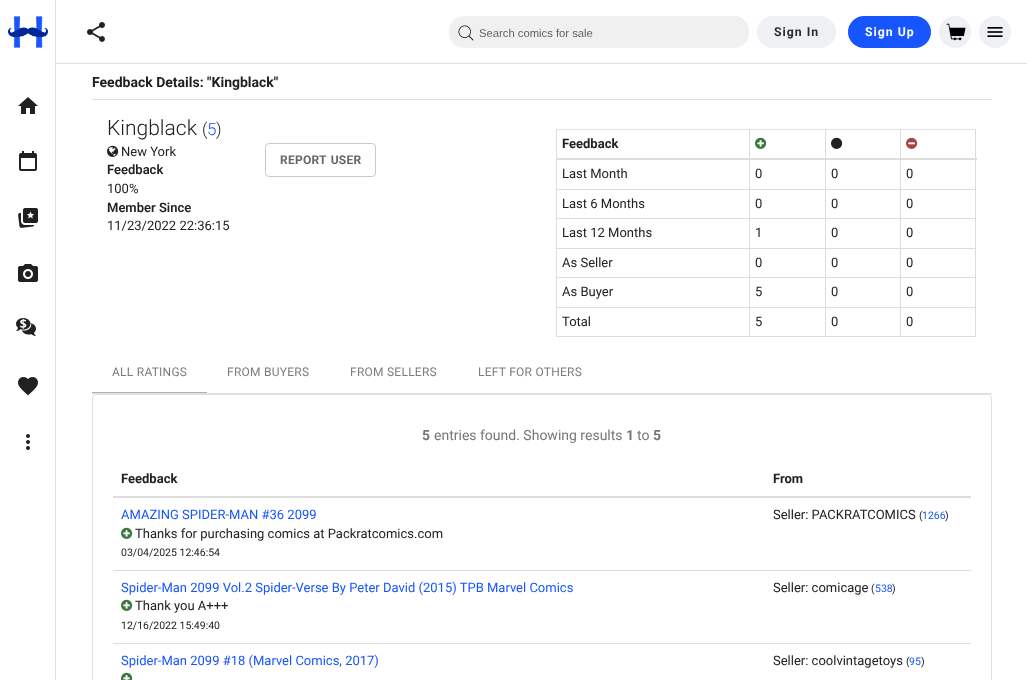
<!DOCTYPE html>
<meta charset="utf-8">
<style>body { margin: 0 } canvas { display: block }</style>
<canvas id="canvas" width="1027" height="680"></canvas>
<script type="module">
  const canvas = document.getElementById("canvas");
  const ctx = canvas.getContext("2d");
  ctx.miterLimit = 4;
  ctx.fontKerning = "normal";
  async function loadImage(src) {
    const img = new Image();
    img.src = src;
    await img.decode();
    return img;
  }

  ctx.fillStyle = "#ffffff";
  ctx.fillRect(0, 0, 1027, 680);
  ctx.fillStyle = "#e0e0e0";
  ctx.fillRect(55, 0, 1, 680);
  ctx.drawImage(await loadImage("img1.png"), 8, 16, 40, 32);
  ctx.drawImage(await loadImage("img2.png"), 18, 97, 20, 17);
  ctx.drawImage(await loadImage("img3.png"), 19, 151, 18, 20);
  ctx.drawImage(await loadImage("img4.png"), 18, 208, 20, 20);
  ctx.drawImage(await loadImage("img5.png"), 18, 264, 20, 18);
  ctx.drawImage(await loadImage("img6.png"), 16, 318, 20, 18);
  ctx.drawImage(await loadImage("img7.png"), 18, 377, 20, 19);
  ctx.drawImage(await loadImage("img8.png"), 26, 434, 4, 16);
  ctx.fillRect(56, 63, 971, 1);
  ctx.drawImage(await loadImage("img9.png"), 87, 22, 18, 20);
  ctx.fillStyle = "#f0f0f0";
  ctx.beginPath();
  ctx.roundRect(449, 16, 300, 32, 15);
  ctx.fill();
  ctx.drawImage(await loadImage("img10.png"), 458, 25, 16, 16);
  ctx.font = "11.25px Liberation Sans";
  ctx.fillStyle = "#606060";
  ctx.fillText("Search comics for sale", 479, 37);
  ctx.fillStyle = "#eef0f3";
  ctx.beginPath();
  ctx.roundRect(757, 16, 79, 32, 16);
  ctx.fill();
  ctx.letterSpacing = "1px";
  ctx.font = "bold 12.25px Roboto";
  ctx.fillStyle = "#2c2c2c";
  ctx.fillText("Sign In", 774, 36);
  ctx.fillStyle = "#1755ff";
  ctx.beginPath();
  ctx.roundRect(848, 16, 83, 32, 16);
  ctx.fill();
  ctx.fillStyle = "#ffffff";
  ctx.fillText("Sign Up", 865, 36);
  ctx.fillStyle = "#eef0f3";
  ctx.beginPath();
  ctx.arc(955, 32, 16, 0, Math.PI * 2);
  ctx.fill();
  ctx.drawImage(await loadImage("img11.png"), 946, 23, 20, 18);
  ctx.beginPath();
  ctx.arc(995, 32, 16, 0, Math.PI * 2);
  ctx.fill();
  ctx.drawImage(await loadImage("img12.png"), 987, 27, 16, 10);
  ctx.fillStyle = "#dddddd";
  ctx.fillRect(92, 99, 900, 1);
  ctx.letterSpacing = "0px";
  ctx.font = "bold 14px Roboto";
  ctx.fillStyle = "#212121";
  ctx.fillText("Feedback Details: \"Kingblack\"", 92, 87);
  ctx.font = "300 21px Roboto";
  ctx.fillText("Kingblack", 107, 135);
  ctx.font = "300 17px Roboto";
  ctx.fillText("(", 202, 135);
  ctx.fillStyle = "#1755ff";
  ctx.fillText("5", 207, 135);
  ctx.fillStyle = "#212121";
  ctx.fillText(")", 216, 135);
  ctx.drawImage(await loadImage("img13.png"), 107, 145, 12, 12);
  ctx.font = "13px Roboto";
  ctx.fillText("New York", 121, 156);
  ctx.beginPath();
  ctx.roundRect(265.5, 143.5, 110, 33, 3.5);
  ctx.strokeStyle = "#cacaca";
  ctx.stroke();
  ctx.letterSpacing = "0.25px";
  ctx.wordSpacing = "1px";
  ctx.font = "bold 12px Roboto";
  ctx.fillStyle = "#666666";
  ctx.fillText("REPORT USER", 280, 164);
  ctx.letterSpacing = "0px";
  ctx.wordSpacing = "0px";
  ctx.font = "600 13px Roboto";
  ctx.fillStyle = "#212121";
  ctx.fillText("Feedback", 107, 174);
  ctx.font = "13px Roboto";
  ctx.fillText("100%", 107, 193);
  ctx.font = "600 13px Roboto";
  ctx.fillText("Member Since", 107, 212);
  ctx.font = "13px Roboto";
  ctx.fillText("11/23/2022 22:36:15", 107, 230);
  ctx.fillStyle = "#e3e3e3";
  ctx.fillRect(556, 129, 420, 1);
  ctx.fillStyle = "#dddddd";
  ctx.fillRect(900, 189, 76, 1);
  ctx.fillRect(900, 218, 76, 1);
  ctx.fillRect(900, 248, 76, 1);
  ctx.fillRect(900, 277, 76, 1);
  ctx.fillRect(900, 307, 76, 1);
  ctx.fillRect(975, 307, 1, 30);
  ctx.fillRect(900, 336, 76, 1);
  ctx.fillRect(900, 307, 1, 30);
  ctx.fillRect(825, 307, 76, 1);
  ctx.fillRect(900, 277, 1, 31);
  ctx.fillRect(825, 277, 76, 1);
  ctx.fillRect(900, 248, 1, 30);
  ctx.fillRect(825, 248, 76, 1);
  ctx.fillRect(900, 218, 1, 31);
  ctx.fillRect(825, 218, 76, 1);
  ctx.fillRect(900, 189, 1, 30);
  ctx.fillRect(825, 189, 76, 1);
  ctx.fillRect(825, 336, 76, 1);
  ctx.fillRect(825, 307, 1, 30);
  ctx.fillRect(749, 307, 77, 1);
  ctx.fillRect(825, 277, 1, 31);
  ctx.fillRect(749, 277, 77, 1);
  ctx.fillRect(825, 248, 1, 30);
  ctx.fillRect(749, 248, 77, 1);
  ctx.fillRect(825, 218, 1, 31);
  ctx.fillRect(749, 218, 77, 1);
  ctx.fillRect(825, 189, 1, 30);
  ctx.fillRect(749, 189, 77, 1);
  ctx.fillRect(749, 336, 77, 1);
  ctx.fillRect(749, 307, 1, 30);
  ctx.fillRect(556, 307, 194, 1);
  ctx.fillRect(749, 277, 1, 31);
  ctx.fillRect(556, 277, 194, 1);
  ctx.fillRect(749, 248, 1, 30);
  ctx.fillRect(556, 248, 194, 1);
  ctx.fillRect(749, 218, 1, 31);
  ctx.fillRect(556, 218, 194, 1);
  ctx.fillRect(749, 189, 1, 30);
  ctx.fillRect(556, 189, 194, 1);
  ctx.fillRect(749, 129, 1, 61);
  ctx.fillRect(825, 129, 1, 61);
  ctx.fillRect(900, 129, 1, 61);
  ctx.fillRect(556, 336, 194, 1);
  ctx.fillRect(556, 307, 1, 30);
  ctx.fillRect(556, 277, 1, 31);
  ctx.fillRect(556, 248, 1, 30);
  ctx.fillRect(556, 218, 1, 31);
  ctx.fillRect(556, 129, 1, 90);
  ctx.fillRect(975, 277, 1, 31);
  ctx.fillRect(975, 248, 1, 30);
  ctx.fillRect(975, 218, 1, 31);
  ctx.fillRect(975, 129, 1, 90);
  ctx.fillRect(556, 158, 421, 2);
  ctx.drawImage(await loadImage("img14.png"), 906, 137, 12, 12);
  ctx.font = "bold 13px Roboto";
  ctx.fillStyle = "#212121";
  ctx.fillText("Feedback", 562, 148);
  ctx.drawImage(await loadImage("img15.png"), 755, 137, 12, 12);
  ctx.drawImage(await loadImage("img16.png"), 831, 137, 12, 12);
  ctx.font = "13px Roboto";
  ctx.fillText("Last Month", 562, 178);
  ctx.fillText("0", 755, 178);
  ctx.fillText("0", 831, 178);
  ctx.fillText("0", 906, 178);
  ctx.fillText("Last 6 Months", 562, 208);
  ctx.fillText("0", 755, 208);
  ctx.fillText("0", 831, 208);
  ctx.fillText("0", 906, 208);
  ctx.fillText("Last 12 Months", 562, 237);
  ctx.fillText("1", 755, 237);
  ctx.fillText("0", 831, 237);
  ctx.fillText("0", 906, 237);
  ctx.fillText("As Seller", 562, 267);
  ctx.fillText("0", 755, 267);
  ctx.fillText("0", 831, 267);
  ctx.fillText("0", 906, 267);
  ctx.fillText("As Buyer", 562, 296);
  ctx.fillText("5", 755, 296);
  ctx.fillText("0", 831, 296);
  ctx.fillText("0", 906, 296);
  ctx.fillText("Total", 562, 326);
  ctx.fillText("5", 755, 326);
  ctx.fillText("0", 831, 326);
  ctx.fillText("0", 906, 326);
  ctx.fillStyle = "#dfdfdf";
  ctx.fillRect(92, 393, 900, 1);
  ctx.fillStyle = "#b0b0b0";
  ctx.fillRect(92, 392, 115, 1);
  ctx.letterSpacing = "0.25px";
  ctx.font = "12px Roboto";
  ctx.fillStyle = "#797d7b";
  ctx.fillText("ALL RATINGS", 112, 376);
  ctx.fillText("FROM BUYERS", 227, 376);
  ctx.fillText("FROM SELLERS", 350, 376);
  ctx.fillText("LEFT FOR OTHERS", 478, 376);
  ctx.beginPath();
  ctx.roundRect(92.5, 394.5, 899, 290, 3.5);
  ctx.strokeStyle = "#e0e0e0";
  ctx.stroke();
  ctx.letterSpacing = "0px";
  ctx.font = "bold 14px Roboto";
  ctx.fillStyle = "#777777";
  ctx.fillText("5", 422, 440);
  ctx.font = "14px Roboto";
  ctx.fillText("entries found. Showing results", 434, 440);
  ctx.font = "bold 14px Roboto";
  ctx.fillText("1", 626, 440);
  ctx.font = "14px Roboto";
  ctx.fillText("to", 637, 440);
  ctx.font = "bold 14px Roboto";
  ctx.fillText("5", 653, 440);
  ctx.font = "bold 13px Roboto";
  ctx.fillStyle = "#212121";
  ctx.fillText("Feedback", 121, 483);
  ctx.fillStyle = "#dddddd";
  ctx.fillRect(113, 496, 858, 2);
  ctx.fillStyle = "#212121";
  ctx.fillText("From", 773, 483);
  ctx.font = "13px Roboto";
  ctx.fillStyle = "#1755ff";
  ctx.fillText("AMAZING SPIDER-MAN #36 2099", 121, 519);
  ctx.drawImage(await loadImage("img15.png"), 121, 527, 12, 12);
  ctx.fillStyle = "#212121";
  ctx.fillText("Thanks for purchasing comics at Packratcomics.com", 135, 538);
  ctx.font = "10.5px Roboto";
  ctx.fillText("03/04/2025 12:46:54", 121, 556);
  ctx.font = "13px Roboto";
  ctx.fillText("Seller: PACKRATCOMICS", 773, 519);
  ctx.font = "10.5px Roboto";
  ctx.fillText("(", 919, 519);
  ctx.fillStyle = "#1755ff";
  ctx.fillText("1266", 922, 519);
  ctx.fillStyle = "#212121";
  ctx.fillText(")", 945, 519);
  ctx.font = "13px Roboto";
  ctx.fillStyle = "#1755ff";
  ctx.fillText("Spider-Man 2099 Vol.2 Spider-Verse By Peter David (2015) TPB Marvel Comics", 121, 592);
  ctx.drawImage(await loadImage("img15.png"), 121, 599, 12, 12);
  ctx.fillStyle = "#212121";
  ctx.fillText("Thank you A+++", 135, 610);
  ctx.font = "10.5px Roboto";
  ctx.fillText("12/16/2022 15:49:40", 121, 629);
  ctx.fillStyle = "#dddddd";
  ctx.fillRect(113, 570, 858, 1);
  ctx.font = "13px Roboto";
  ctx.fillStyle = "#212121";
  ctx.fillText("Seller: comicage", 773, 592);
  ctx.font = "10.5px Roboto";
  ctx.fillText("(", 871, 592);
  ctx.fillStyle = "#1755ff";
  ctx.fillText("538", 875, 592);
  ctx.fillStyle = "#212121";
  ctx.fillText(")", 892, 592);
  ctx.font = "13px Roboto";
  ctx.fillStyle = "#1755ff";
  ctx.fillText("Spider-Man 2099 #18 (Marvel Comics, 2017)", 121, 665);
  ctx.drawImage(await loadImage("img17.png"), 121, 672, 12, 8);
  ctx.fillStyle = "#dddddd";
  ctx.fillRect(113, 643, 858, 1);
  ctx.fillStyle = "#212121";
  ctx.fillText("Seller: coolvintagetoys", 773, 665);
  ctx.font = "10.5px Roboto";
  ctx.fillText("(", 906, 665);
  ctx.fillStyle = "#1755ff";
  ctx.fillText("95", 909, 665);
  ctx.fillStyle = "#212121";
  ctx.fillText(")", 921, 665);
</script>
